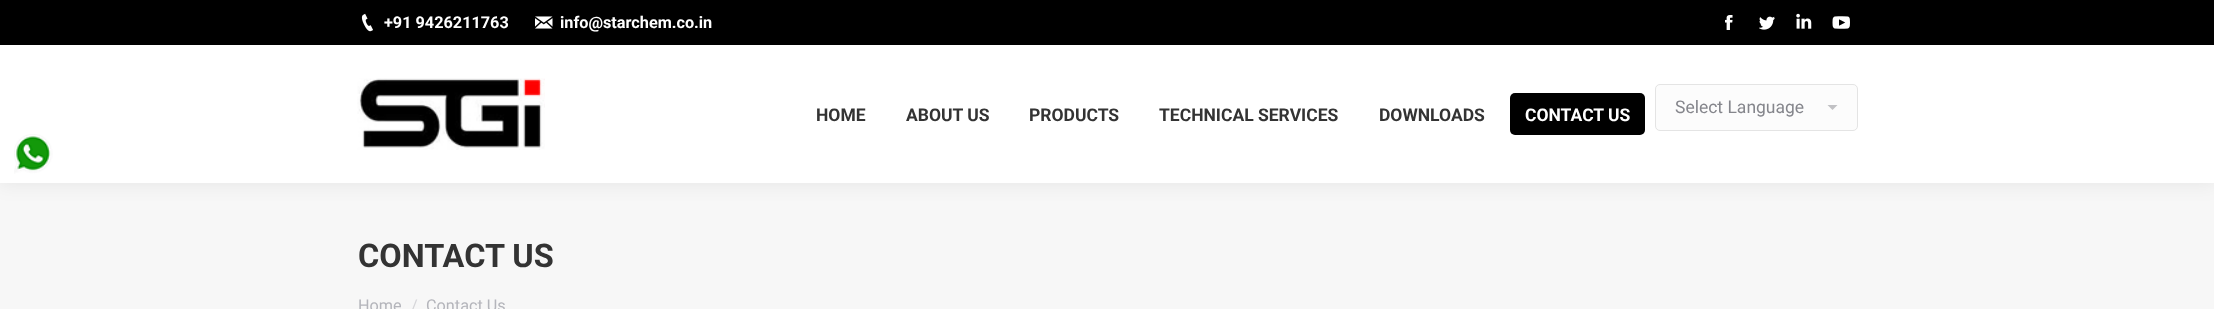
<!DOCTYPE html>
<meta charset="utf-8">
<style>body { margin: 0 } canvas { display: block }</style>
<canvas id="canvas" width="2214" height="309"></canvas>
<script type="module">
  const canvas = document.getElementById("canvas");
  const ctx = canvas.getContext("2d");
  ctx.miterLimit = 4;
  ctx.fontKerning = "normal";
  async function loadImage(src) {
    const img = new Image();
    img.src = src;
    await img.decode();
    return img;
  }

  ctx.fillStyle = "#f7f7f7";
  ctx.fillRect(0, 0, 2214, 309);
  ctx.fillStyle = "rgba(0, 0, 0, 0.07)";
  ctx.filter = "blur(9.5px)";
  ctx.beginPath();
  ctx.rect(-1, -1, 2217, 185);
  ctx.fill();
  ctx.filter = "none";
  ctx.fillStyle = "#ffffff";
  ctx.fillRect(0, 45, 2214, 138);
  ctx.drawImage(await loadImage("img1.png"), 14, 134, 39, 40);
  ctx.fillStyle = "#000000";
  ctx.fillRect(0, 0, 2214, 45);
  ctx.drawImage(await loadImage("img2.png"), 361, 13, 12, 19);
  ctx.font = "bold 16.25px Roboto";
  ctx.fillStyle = "#ffffff";
  ctx.fillText("+91 9426211763", 384, 28);
  ctx.drawImage(await loadImage("img3.png"), 535, 16, 18, 13);
  ctx.fillText("info@starchem.co.in", 560, 28);
  ctx.drawImage(await loadImage("img4.png"), 1725, 15, 8, 15);
  ctx.drawImage(await loadImage("img5.png"), 1759, 16, 16, 14);
  ctx.drawImage(await loadImage("img6.png"), 1796, 13, 16, 16);
  ctx.drawImage(await loadImage("img7.png"), 1832, 16, 18, 13);
  ctx.drawImage(await loadImage("img8.png"), 357, 78, 188, 72);
  ctx.font = "bold 17.5px Roboto";
  ctx.fillStyle = "#333333";
  ctx.fillText("HOME", 816, 121);
  ctx.fillText("ABOUT US", 906, 121);
  ctx.fillText("PRODUCTS", 1029, 121);
  ctx.fillText("TECHNICAL SERVICES", 1159, 121);
  ctx.fillText("DOWNLOADS", 1379, 121);
  ctx.fillStyle = "#000000";
  ctx.beginPath();
  ctx.roundRect(1510, 93, 135, 42, 5);
  ctx.fill();
  ctx.fillStyle = "#ffffff";
  ctx.fillText("CONTACT US", 1525, 121);
  ctx.fillStyle = "#fcfcfc";
  ctx.beginPath();
  ctx.roundRect(1655, 84, 203, 47, 5);
  ctx.fill();
  ctx.fillStyle = "#c1c1c4";
  ctx.beginPath();
  ctx.moveTo(1827.5, 105);
  ctx.lineTo(1832.5, 110);
  ctx.lineTo(1837.5, 105);
  ctx.closePath();
  ctx.fill();
  ctx.beginPath();
  ctx.roundRect(1655.5, 84.5, 202, 46, 4.5);
  ctx.strokeStyle = "#e4e4e4";
  ctx.stroke();
  ctx.font = "17.5px Roboto";
  ctx.fillStyle = "#85868c";
  ctx.fillText("Select Language", 1675, 113);
  ctx.font = "bold 32.5px Roboto";
  ctx.fillStyle = "#333333";
  ctx.fillText("CONTACT US", 358, 267);
  ctx.font = "16.25px Roboto";
  ctx.fillStyle = "#b4b5bb";
  ctx.fillText("Home", 358, 311);
  ctx.fillStyle = "#d6d6d9";
  ctx.fillText("/", 411, 311);
  ctx.fillStyle = "#b4b5bb";
  ctx.fillText("Contact Us", 426, 311);
</script>
